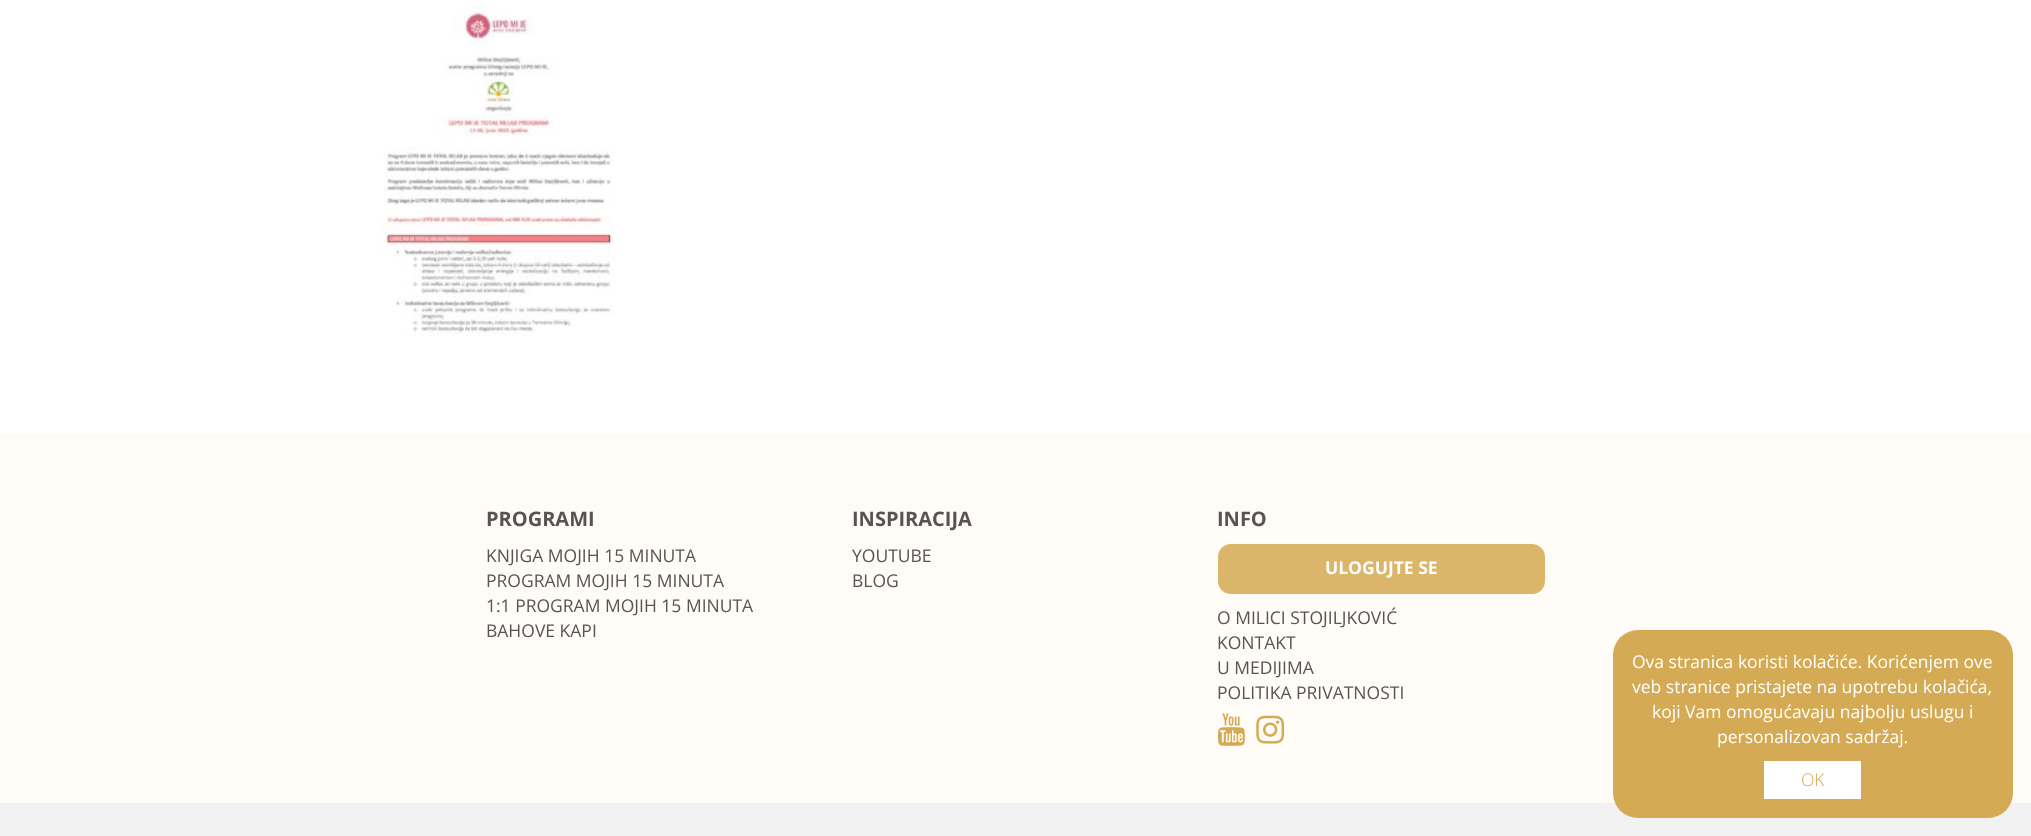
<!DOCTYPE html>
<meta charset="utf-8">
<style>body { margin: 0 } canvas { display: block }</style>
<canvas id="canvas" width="2031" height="836"></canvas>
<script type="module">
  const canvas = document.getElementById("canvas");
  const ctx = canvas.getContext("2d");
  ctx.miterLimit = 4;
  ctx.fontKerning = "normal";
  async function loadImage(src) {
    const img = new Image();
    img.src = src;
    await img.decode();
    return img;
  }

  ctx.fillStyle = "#ffffff";
  ctx.fillRect(0, 0, 2031, 836);
  ctx.drawImage(await loadImage("img1.png"), 379, 6, 235, 330);
  ctx.fillStyle = "#f2f2f2";
  ctx.fillRect(0, 803, 2031, 33);
  ctx.fillStyle = "#fffcf7";
  ctx.fillRect(0, 434, 2031, 369);
  ctx.font = "bold 20px Open Sans";
  ctx.fillStyle = "#555555";
  ctx.fillText("PROGRAMI", 486, 526);
  ctx.font = "17.5px Open Sans";
  ctx.fillText("KNJIGA MOJIH 15 MINUTA", 486, 562);
  ctx.fillText("PROGRAM MOJIH 15 MINUTA", 486, 587);
  ctx.fillText("1:1 PROGRAM MOJIH 15 MINUTA", 486, 612);
  ctx.fillText("BAHOVE KAPI", 486, 637);
  ctx.font = "bold 20px Open Sans";
  ctx.fillText("INSPIRACIJA", 852, 526);
  ctx.font = "17.5px Open Sans";
  ctx.fillText("YOUTUBE", 852, 562);
  ctx.fillText("BLOG", 852, 587);
  ctx.font = "bold 20px Open Sans";
  ctx.fillText("INFO", 1217, 526);
  ctx.fillStyle = "#dab56a";
  ctx.beginPath();
  ctx.roundRect(1218, 544, 327, 50, 13);
  ctx.fill();
  ctx.font = "bold 17.5px Open Sans";
  ctx.fillStyle = "#ffffff";
  ctx.fillText("ULOGUJTE SE", 1325, 574);
  ctx.font = "17.5px Open Sans";
  ctx.fillStyle = "#555555";
  ctx.fillText("O MILICI STOJILJKOVIĆ", 1217, 624);
  ctx.fillText("KONTAKT", 1217, 649);
  ctx.fillText("U MEDIJIMA", 1217, 674);
  ctx.fillText("POLITIKA PRIVATNOSTI", 1217, 699);
  ctx.drawImage(await loadImage("img2.png"), 1218, 713, 27, 33);
  ctx.drawImage(await loadImage("img3.png"), 1256, 715, 29, 29);
  ctx.fillStyle = "#d5aa54";
  ctx.beginPath();
  ctx.roundRect(1613, 630, 400, 188, 25);
  ctx.fill();
  ctx.fillStyle = "#ffffff";
  ctx.fillText("Ova stranica koristi kolačiće. Korićenjem ove", 1632, 668);
  ctx.fillText("veb stranice pristajete na upotrebu kolačića,", 1632, 693);
  ctx.fillText("koji Vam omogućavaju najbolju uslugu i", 1652, 718);
  ctx.fillText("personalizovan sadržaj.", 1717, 743);
  ctx.fillRect(1764, 761, 97, 38);
  ctx.font = "300 17.5px Open Sans";
  ctx.fillStyle = "#d5aa54";
  ctx.fillText("OK", 1801, 786);
</script>
